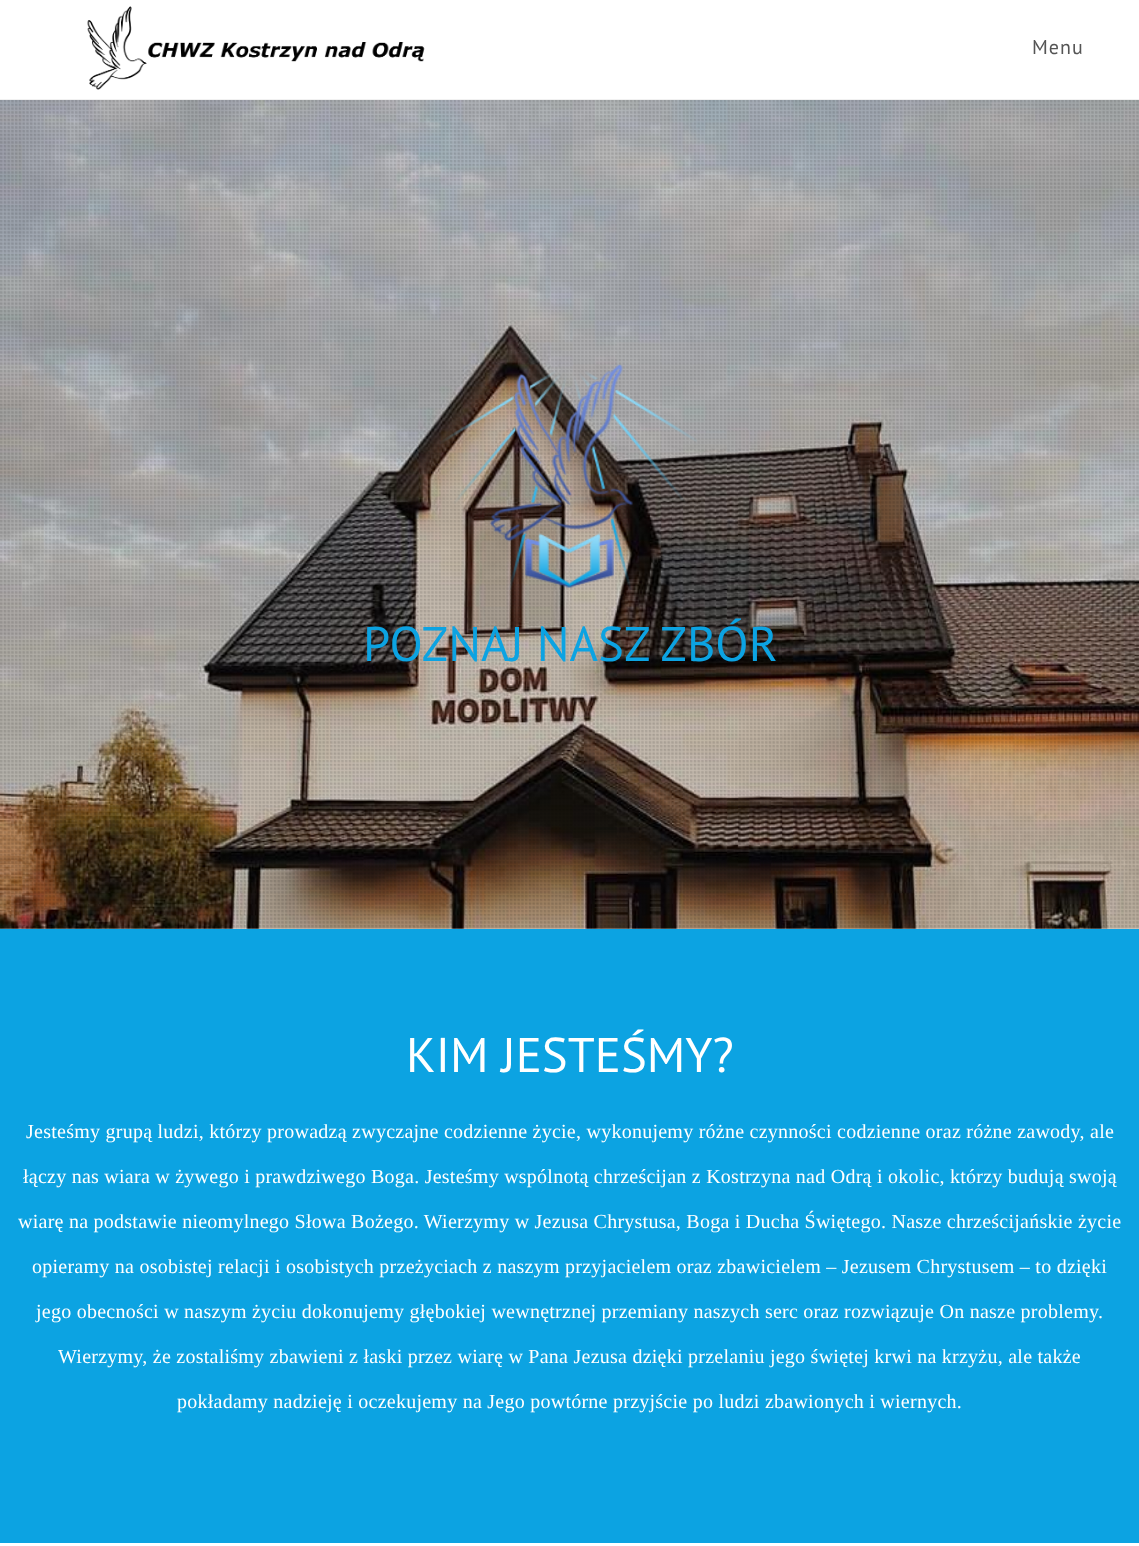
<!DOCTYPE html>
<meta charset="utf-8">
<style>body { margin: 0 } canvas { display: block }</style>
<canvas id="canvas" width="1139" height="1546"></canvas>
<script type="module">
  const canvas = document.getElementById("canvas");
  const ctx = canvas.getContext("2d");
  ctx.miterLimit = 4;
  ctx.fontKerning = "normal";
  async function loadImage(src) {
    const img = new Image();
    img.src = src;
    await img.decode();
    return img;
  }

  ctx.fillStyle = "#ffffff";
  ctx.fillRect(0, 0, 1139, 1546);
  ctx.fillStyle = "#f1f1f1";
  ctx.fillRect(0, 99, 1139, 1);
  ctx.drawImage(await loadImage("img1.png"), 87, 6, 338, 84);
  ctx.letterSpacing = "1px";
  ctx.font = "20px PT Sans";
  ctx.fillStyle = "#555555";
  ctx.fillText("Menu", 1032, 54);
  ctx.drawImage(await loadImage("img2.png"), 0, 100, 1139, 829);
  ctx.drawImage(await loadImage("img3.png"), 0, 100, 1139, 829);
  ctx.drawImage(await loadImage("img4.png"), 440, 364, 257, 226);
  ctx.letterSpacing = "0px";
  ctx.font = "48.75px PT Sans";
  ctx.fillStyle = "#0ca3e2";
  ctx.fillText("POZNAJ NASZ ZBÓR", 363, 661);
  ctx.fillRect(0, 929, 1139, 614);
  ctx.fillStyle = "#ffffff";
  ctx.fillText("KIM JESTEŚMY?", 406, 1072);
  ctx.letterSpacing = "0.25px";
  ctx.font = "20px Liberation Serif";
  ctx.fillText("Jesteśmy grupą ludzi, którzy prowadzą zwyczajne codzienne życie, wykonujemy różne czynności codzienne oraz różne zawody, ale", 26, 1138);
  ctx.fillText("łączy nas wiara w żywego i prawdziwego Boga. Jesteśmy wspólnotą chrześcijan z Kostrzyna nad Odrą i okolic, którzy budują swoją", 23, 1183);
  ctx.fillText("wiarę na podstawie nieomylnego Słowa Bożego. Wierzymy w Jezusa Chrystusa, Boga i Ducha Świętego. Nasze chrześcijańskie życie", 18, 1228);
  ctx.fillText("opieramy na osobistej relacji i osobistych przeżyciach z naszym przyjacielem oraz zbawicielem – Jezusem Chrystusem – to dzięki", 32, 1273);
  ctx.fillText("jego obecności w naszym życiu dokonujemy głębokiej wewnętrznej przemiany naszych serc oraz rozwiązuje On nasze problemy.", 36, 1318);
  ctx.fillText("Wierzymy, że zostaliśmy zbawieni z łaski przez wiarę w Pana Jezusa dzięki przelaniu jego świętej krwi na krzyżu, ale także", 58, 1363);
  ctx.fillText("pokładamy nadzieję i oczekujemy na Jego powtórne przyjście po ludzi zbawionych i wiernych.", 177, 1408);
</script>
